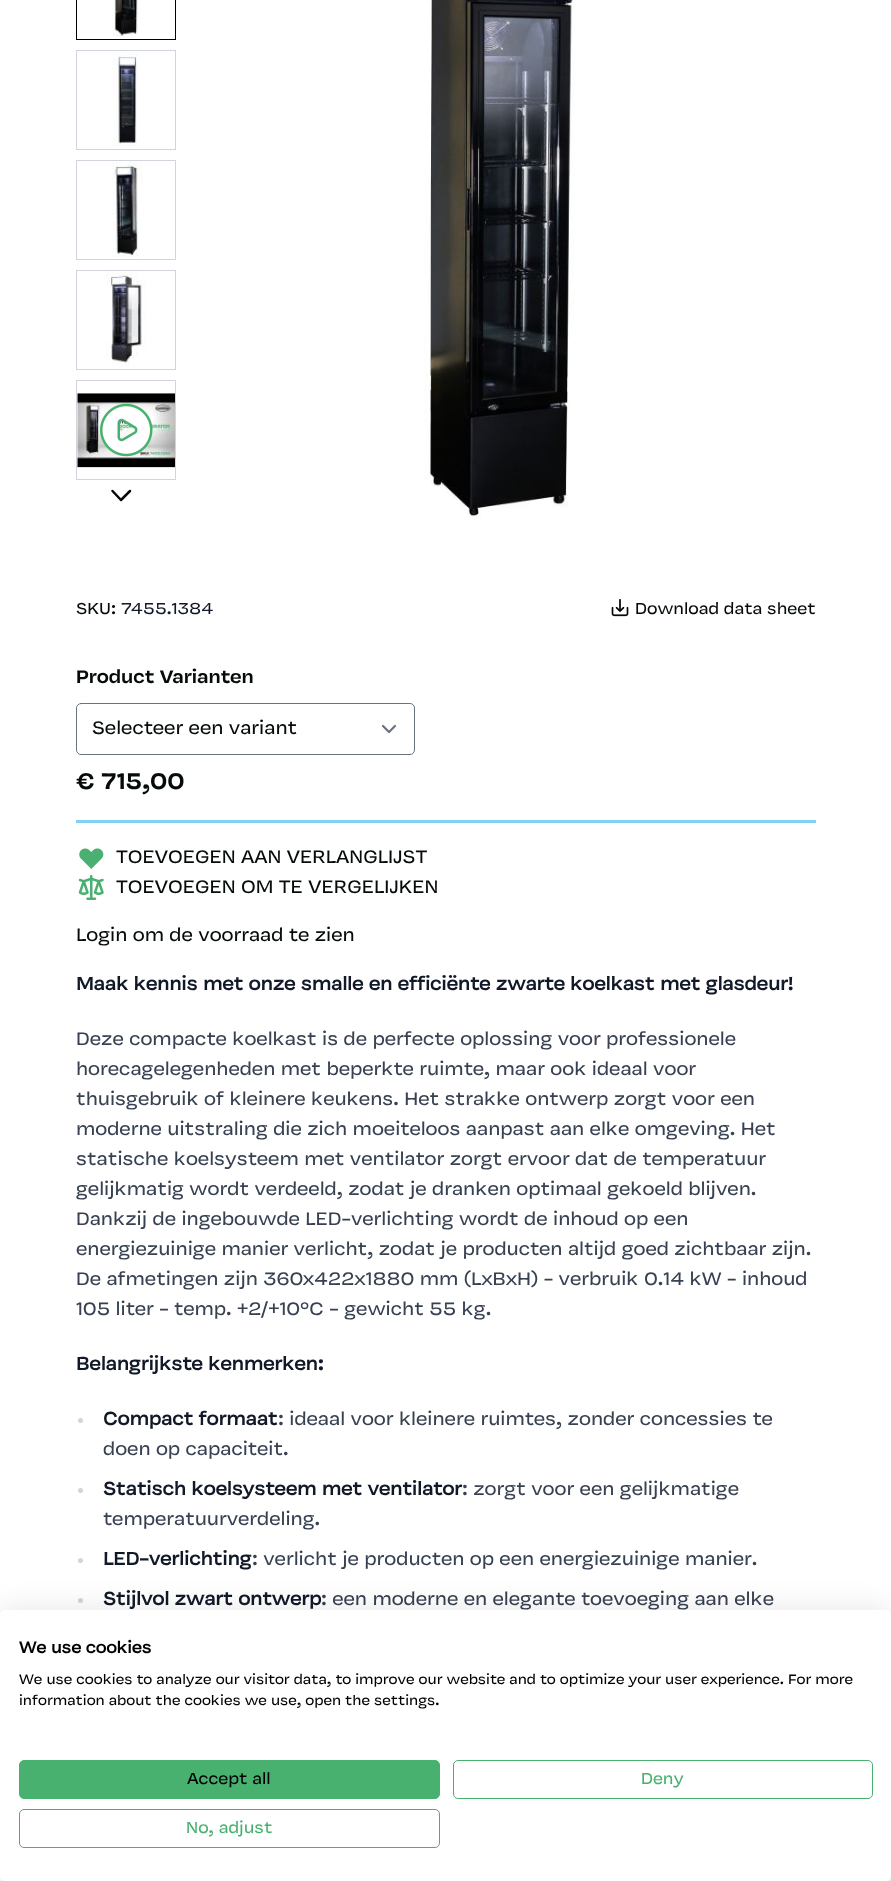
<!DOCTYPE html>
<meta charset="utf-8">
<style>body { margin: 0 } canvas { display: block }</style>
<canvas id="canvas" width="891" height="1881"></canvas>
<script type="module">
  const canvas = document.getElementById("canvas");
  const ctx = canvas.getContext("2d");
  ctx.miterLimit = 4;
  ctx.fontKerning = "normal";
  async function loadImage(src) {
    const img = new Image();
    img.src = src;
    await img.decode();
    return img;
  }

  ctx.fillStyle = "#ffffff";
  ctx.fillRect(0, 0, 891, 1881);
  ctx.strokeStyle = "#000000";
  ctx.strokeRect(76.5, -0.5, 99, 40);
  ctx.drawImage(await loadImage("img1.png"), 112, 0, 26, 37);
  ctx.strokeStyle = "#d1d5db";
  ctx.strokeRect(76.5, 50.5, 99, 99);
  ctx.drawImage(await loadImage("img2.png"), 112, 52, 26, 95);
  ctx.strokeRect(76.5, 160.5, 99, 99);
  ctx.drawImage(await loadImage("img3.png"), 112, 161, 31, 96);
  ctx.strokeRect(76.5, 270.5, 99, 99);
  ctx.drawImage(await loadImage("img4.png"), 106, 271, 41, 96);
  ctx.strokeRect(76.5, 380.5, 99, 99);
  ctx.drawImage(await loadImage("img5.png"), 77, 393, 98, 75);
  ctx.drawImage(await loadImage("img6.png"), 100, 403, 53, 54);
  ctx.beginPath();
  ctx.moveTo(130, 491);
  ctx.lineTo(121, 500);
  ctx.lineTo(112.5, 491);
  ctx.strokeStyle = "#050a0a";
  ctx.lineWidth = 2.5;
  ctx.lineCap = "round";
  ctx.lineJoin = "round";
  ctx.stroke();
  ctx.drawImage(await loadImage("img7.png"), 424, 0, 151, 519);
  ctx.font = "17.5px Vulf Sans";
  ctx.fillStyle = "#050a0a";
  ctx.fillText("SKU:", 76, 614);
  ctx.fillStyle = "#111827";
  ctx.fillText("7455.1384", 121, 614);
  ctx.drawImage(await loadImage("img8.png"), 611, 599, 18, 18);
  ctx.fillStyle = "#050a0a";
  ctx.fillText("Download data sheet", 635, 614);
  ctx.font = "500 20px Vulf Sans";
  ctx.fillText("Product Varianten", 76, 683);
  ctx.beginPath();
  ctx.moveTo(383, 726);
  ctx.lineTo(389, 732);
  ctx.lineTo(395, 726);
  ctx.strokeStyle = "#6b7280";
  ctx.lineWidth = 2.2;
  ctx.stroke();
  ctx.beginPath();
  ctx.roundRect(76.5, 703.5, 338, 51, 4.5);
  ctx.lineWidth = 1;
  ctx.lineJoin = "miter";
  ctx.stroke();
  ctx.font = "20px Vulf Sans";
  ctx.fillText("Selecteer een variant", 92, 734);
  ctx.fillStyle = "#83d0f5";
  ctx.fillRect(76, 820, 740, 3);
  ctx.font = "500 25px Vulf Sans";
  ctx.fillStyle = "#050a0a";
  ctx.fillText("€ 715,00", 76, 789);
  ctx.drawImage(await loadImage("img9.png"), 79, 848, 25, 21);
  ctx.font = "20px Vulf Sans";
  ctx.fillText("TOEVOEGEN AAN VERLANGLIJST", 116, 863);
  ctx.drawImage(await loadImage("img10.png"), 78, 875, 26, 25);
  ctx.fillText("TOEVOEGEN OM TE VERGELIJKEN", 116, 893);
  ctx.fillText("Login om de voorraad te zien", 76, 941);
  ctx.font = "bold 20px Vulf Sans";
  ctx.fillStyle = "#111827";
  ctx.fillText("Maak kennis met onze smalle en efficiënte zwarte koelkast met glasdeur!", 76, 990);
  ctx.font = "20px Vulf Sans";
  ctx.fillStyle = "#374151";
  ctx.fillText("Deze compacte koelkast is de perfecte oplossing voor professionele", 76, 1045);
  ctx.fillText("horecagelegenheden met beperkte ruimte, maar ook ideaal voor", 76, 1075);
  ctx.fillText("thuisgebruik of kleinere keukens. Het strakke ontwerp zorgt voor een", 76, 1105);
  ctx.fillText("moderne uitstraling die zich moeiteloos aanpast aan elke omgeving. Het", 76, 1135);
  ctx.fillText("statische koelsysteem met ventilator zorgt ervoor dat de temperatuur", 76, 1165);
  ctx.fillText("gelijkmatig wordt verdeeld, zodat je dranken optimaal gekoeld blijven.", 76, 1195);
  ctx.fillText("Dankzij de ingebouwde LED-verlichting wordt de inhoud op een", 76, 1225);
  ctx.fillText("energiezuinige manier verlicht, zodat je producten altijd goed zichtbaar zijn.", 76, 1255);
  ctx.fillText("De afmetingen zijn 360x422x1880 mm (LxBxH) - verbruik 0.14 kW - inhoud", 76, 1285);
  ctx.fillText("105 liter - temp. +2/+10ºC - gewicht 55 kg.", 76, 1315);
  ctx.font = "bold 20px Vulf Sans";
  ctx.fillStyle = "#111827";
  ctx.fillText("Belangrijkste kenmerken:", 76, 1370);
  ctx.fillStyle = "#d1d5db";
  ctx.beginPath();
  ctx.arc(80.5, 1420.5, 2.5, 0, Math.PI * 2);
  ctx.fill();
  ctx.fillStyle = "#111827";
  ctx.fillText("Compact formaat", 103, 1425);
  ctx.font = "20px Vulf Sans";
  ctx.fillStyle = "#374151";
  ctx.fillText(": ideaal voor kleinere ruimtes, zonder concessies te", 278, 1425);
  ctx.fillText("doen op capaciteit.", 103, 1455);
  ctx.fillStyle = "#d1d5db";
  ctx.beginPath();
  ctx.arc(80.5, 1490.5, 2.5, 0, Math.PI * 2);
  ctx.fill();
  ctx.font = "bold 20px Vulf Sans";
  ctx.fillStyle = "#111827";
  ctx.fillText("Statisch koelsysteem met ventilator", 103, 1495);
  ctx.font = "20px Vulf Sans";
  ctx.fillStyle = "#374151";
  ctx.fillText(": zorgt voor een gelijkmatige", 462, 1495);
  ctx.fillText("temperatuurverdeling.", 103, 1525);
  ctx.fillStyle = "#d1d5db";
  ctx.beginPath();
  ctx.arc(80.5, 1560.5, 2.5, 0, Math.PI * 2);
  ctx.fill();
  ctx.font = "bold 20px Vulf Sans";
  ctx.fillStyle = "#111827";
  ctx.fillText("LED-verlichting", 103, 1565);
  ctx.font = "20px Vulf Sans";
  ctx.fillStyle = "#374151";
  ctx.fillText(": verlicht je producten op een energiezuinige manier.", 252, 1565);
  ctx.fillStyle = "#d1d5db";
  ctx.beginPath();
  ctx.arc(80.5, 1600.5, 2.5, 0, Math.PI * 2);
  ctx.fill();
  ctx.font = "bold 20px Vulf Sans";
  ctx.fillStyle = "#111827";
  ctx.fillText("Stijlvol zwart ontwerp", 103, 1605);
  ctx.font = "20px Vulf Sans";
  ctx.fillStyle = "#374151";
  ctx.fillText(": een moderne en elegante toevoeging aan elke", 321, 1605);
  ctx.fillStyle = "#f3f4f6";
  ctx.fillRect(1, 1876, 890, 5);
  ctx.fillStyle = "rgba(0, 0, 0, 0.1)";
  ctx.filter = "blur(15px)";
  ctx.beginPath();
  ctx.roundRect(0, 1610, 891, 271, 5);
  ctx.fill();
  ctx.filter = "none";
  ctx.fillStyle = "#ffffff";
  ctx.beginPath();
  ctx.roundRect(0, 1610, 891, 271, 5);
  ctx.fill();
  ctx.font = "bold 17.5px Vulf Sans";
  ctx.fillStyle = "#000000";
  ctx.fillText("We use cookies", 19, 1653);
  ctx.font = "15px Vulf Sans";
  ctx.fillText("We use cookies to analyze our visitor data, to improve our website and to optimize your user experience. For more", 19, 1684);
  ctx.fillText("information about the cookies we use, open the settings.", 19, 1705);
  ctx.fillStyle = "#49b170";
  ctx.beginPath();
  ctx.roundRect(19.5, 1760.5, 420, 38, 4.5);
  ctx.fill();
  ctx.strokeStyle = "#49b170";
  ctx.stroke();
  ctx.font = "17.5px Vulf Sans";
  ctx.fillStyle = "#000000";
  ctx.fillText("Accept all", 187, 1784);
  ctx.beginPath();
  ctx.roundRect(453.5, 1760.5, 419, 38, 4.5);
  ctx.stroke();
  ctx.fillStyle = "#49b170";
  ctx.fillText("Deny", 641, 1784);
  ctx.beginPath();
  ctx.roundRect(19.5, 1809.5, 420, 38, 4.5);
  ctx.stroke();
  ctx.fillText("No, adjust", 186, 1833);
</script>
